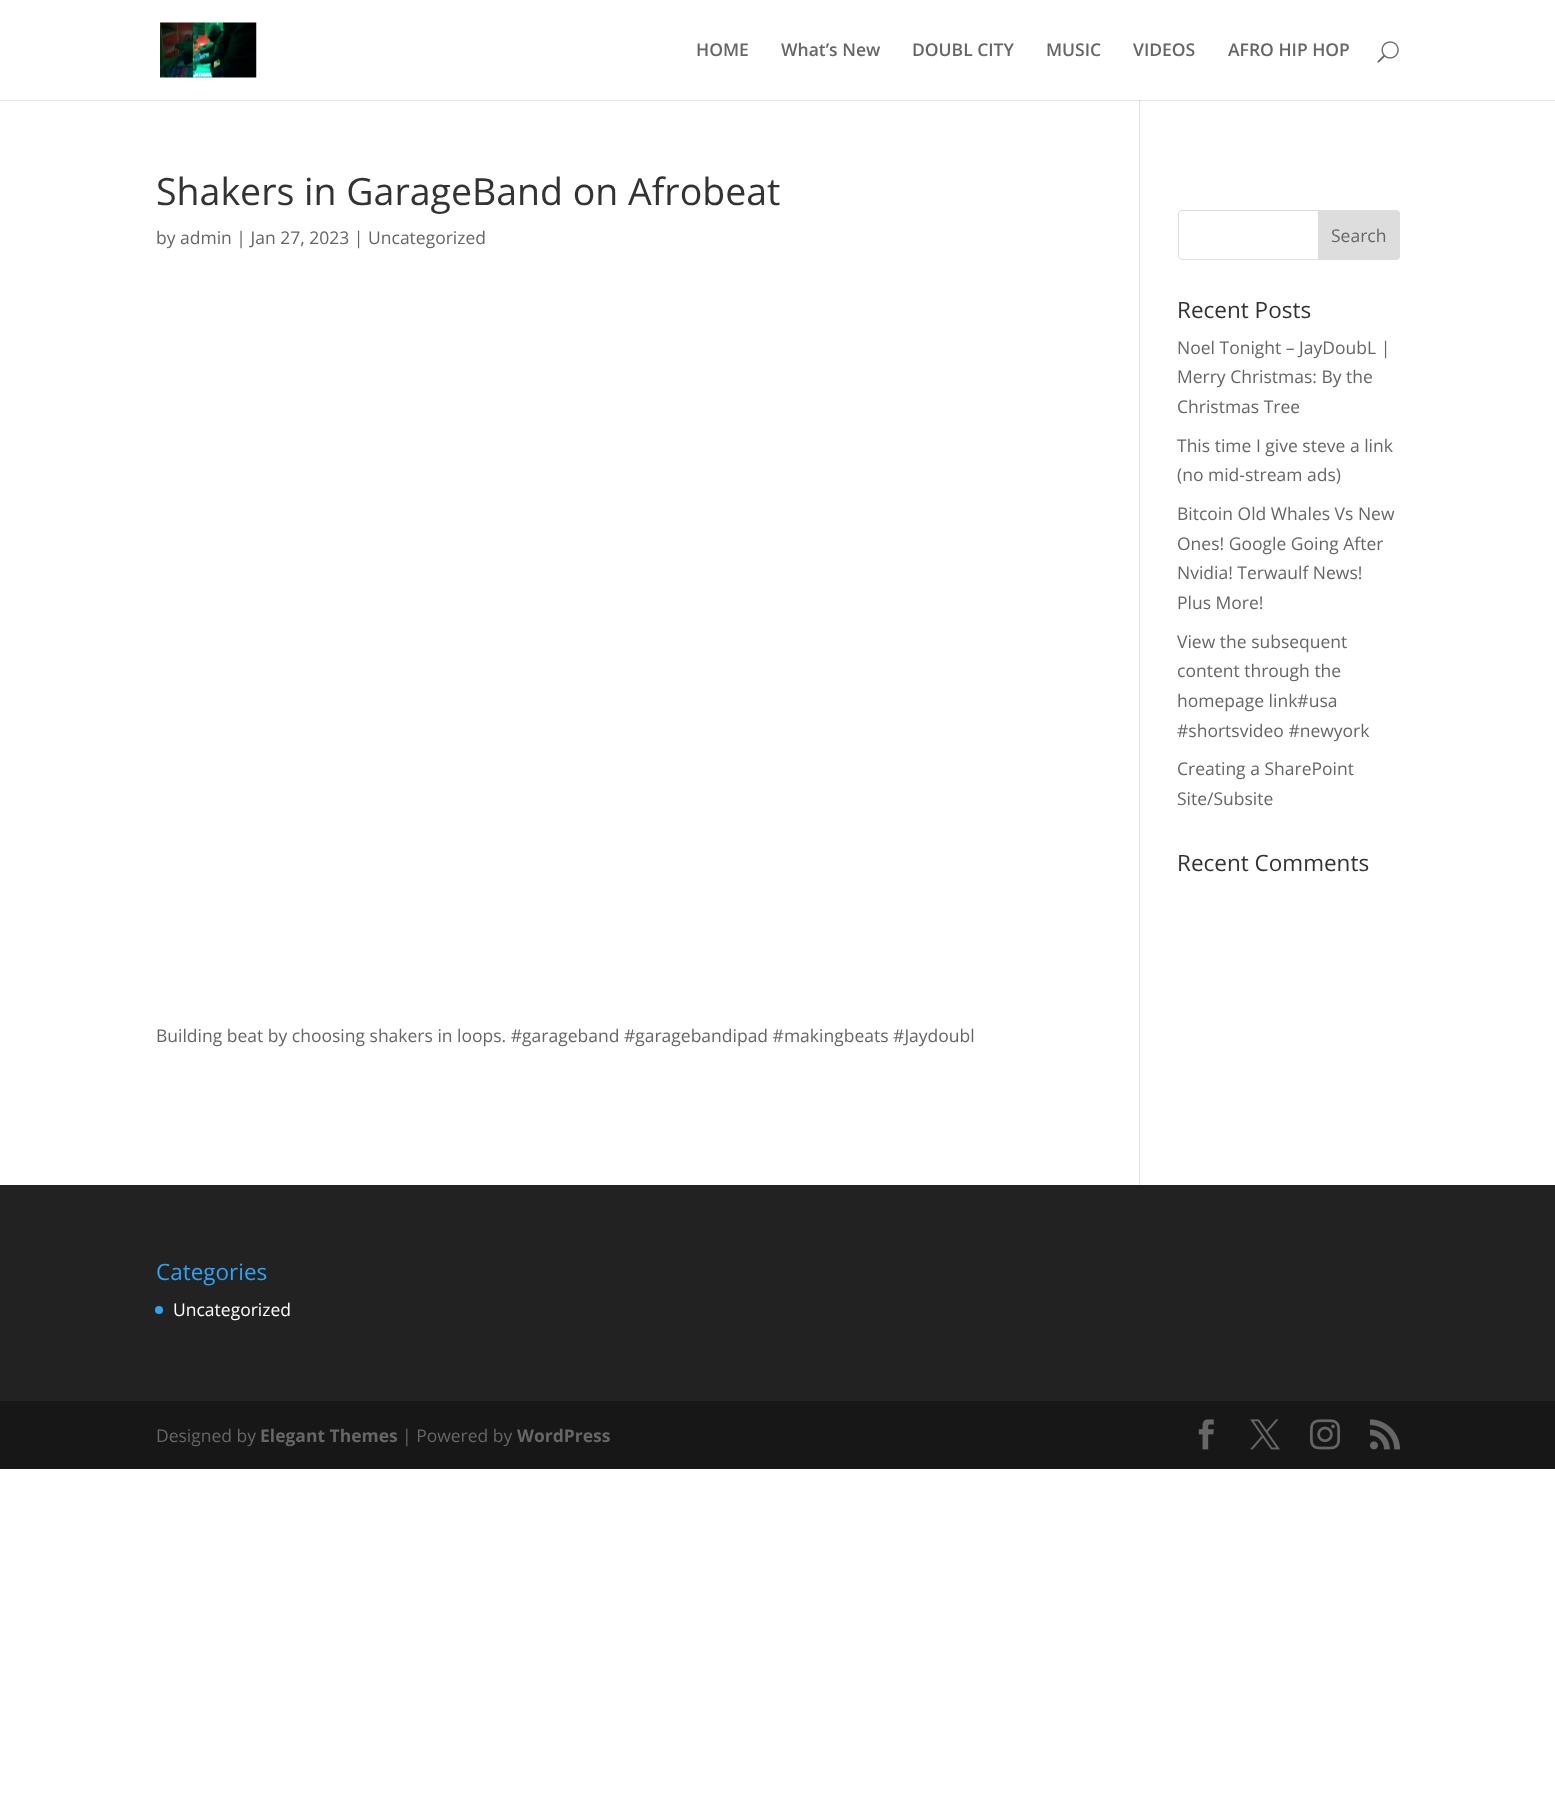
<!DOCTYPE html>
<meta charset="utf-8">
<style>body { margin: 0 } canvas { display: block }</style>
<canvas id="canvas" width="1555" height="1815"></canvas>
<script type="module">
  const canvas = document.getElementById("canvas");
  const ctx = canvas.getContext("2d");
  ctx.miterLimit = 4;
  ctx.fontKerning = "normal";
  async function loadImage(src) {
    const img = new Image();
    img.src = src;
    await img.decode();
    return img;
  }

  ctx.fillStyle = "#ffffff";
  ctx.fillRect(0, 0, 1555, 1815);
  ctx.fillStyle = "#e6e6e6";
  ctx.fillRect(0, 100, 1555, 1);
  ctx.drawImage(await loadImage("img1.png"), 160, 22, 97, 56);
  ctx.font = "600 17.5px Open Sans";
  ctx.fillStyle = "#666666";
  ctx.fillText("HOME", 696, 56);
  ctx.fillText("What’s New", 781, 56);
  ctx.fillText("DOUBL CITY", 912, 56);
  ctx.fillText("MUSIC", 1046, 56);
  ctx.fillText("VIDEOS", 1133, 56);
  ctx.fillText("AFRO HIP HOP", 1228, 56);
  ctx.drawImage(await loadImage("img2.png"), 1377, 41, 22, 22);
  ctx.fillStyle = "#e2e2e2";
  ctx.fillRect(1139, 100, 1, 1085);
  ctx.fillStyle = "#cbcbcb";
  ctx.fillRect(1139, 100, 1, 1);
  ctx.font = "37.5px Open Sans";
  ctx.fillStyle = "#333333";
  ctx.fillText("Shakers in GarageBand on Afrobeat", 156, 205);
  ctx.font = "17.5px Open Sans";
  ctx.fillStyle = "#666666";
  ctx.fillText("by admin | Jan 27, 2023 | Uncategorized", 156, 244);
  ctx.fillText("Building beat by choosing shakers in loops. #garageband #garagebandipad #makingbeats #Jaydoubl", 156, 1042);
  ctx.beginPath();
  ctx.roundRect(1178.5, 210.5, 221, 49, 3.5);
  ctx.strokeStyle = "#dddddd";
  ctx.stroke();
  ctx.fillStyle = "#dddddd";
  ctx.beginPath();
  ctx.roundRect(1318.5, 210.5, 81, 49, [0, 3.5, 3.5, 0]);
  ctx.fill();
  ctx.stroke();
  ctx.fillStyle = "#666666";
  ctx.fillText("Search", 1331, 242);
  ctx.font = "22.5px Open Sans";
  ctx.fillStyle = "#333333";
  ctx.fillText("Recent Posts", 1177, 318);
  ctx.font = "17.5px Open Sans";
  ctx.fillStyle = "#666666";
  ctx.fillText("Noel Tonight – JayDoubL |", 1177, 354);
  ctx.fillText("Merry Christmas: By the", 1177, 383);
  ctx.fillText("Christmas Tree", 1177, 413);
  ctx.fillText("This time I give steve a link", 1177, 452);
  ctx.fillText("(no mid-stream ads)", 1177, 481);
  ctx.fillText("Bitcoin Old Whales Vs New", 1177, 520);
  ctx.fillText("Ones! Google Going After", 1177, 550);
  ctx.fillText("Nvidia! Terwaulf News!", 1177, 579);
  ctx.fillText("Plus More!", 1177, 609);
  ctx.fillText("View the subsequent", 1177, 648);
  ctx.fillText("content through the", 1177, 677);
  ctx.fillText("homepage link#usa", 1177, 707);
  ctx.fillText("#shortsvideo #newyork", 1177, 737);
  ctx.fillText("Creating a SharePoint", 1177, 775);
  ctx.fillText("Site/Subsite", 1177, 805);
  ctx.font = "22.5px Open Sans";
  ctx.fillStyle = "#333333";
  ctx.fillText("Recent Comments", 1177, 871);
  ctx.fillStyle = "#222222";
  ctx.fillRect(0, 1185, 1555, 216);
  ctx.fillStyle = "#2ea3f2";
  ctx.fillText("Categories", 156, 1280);
  ctx.beginPath();
  ctx.arc(159, 1310, 4, 0, Math.PI * 2);
  ctx.fill();
  ctx.font = "17.5px Open Sans";
  ctx.fillStyle = "#ffffff";
  ctx.fillText("Uncategorized", 173, 1316);
  ctx.fillStyle = "#171717";
  ctx.fillRect(0, 1401, 1555, 68);
  ctx.fillStyle = "#666666";
  ctx.fillText("Designed by", 156, 1442);
  ctx.font = "bold 17.5px Open Sans";
  ctx.fillText("Elegant Themes", 260, 1442);
  ctx.font = "17.5px Open Sans";
  ctx.fillText("| Powered by", 402, 1442);
  ctx.font = "bold 17.5px Open Sans";
  ctx.fillText("WordPress", 517, 1442);
  ctx.drawImage(await loadImage("img3.png"), 1198, 1419, 16, 31);
  ctx.drawImage(await loadImage("img4.png"), 1250, 1419, 30, 31);
  ctx.drawImage(await loadImage("img5.png"), 1310, 1419, 30, 31);
  ctx.drawImage(await loadImage("img6.png"), 1370, 1419, 30, 31);
</script>
